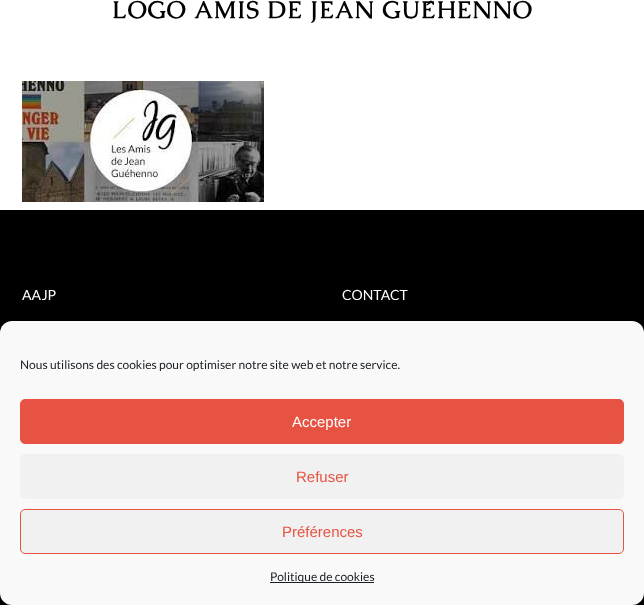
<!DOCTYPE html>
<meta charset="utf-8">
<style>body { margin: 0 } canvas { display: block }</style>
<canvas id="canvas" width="644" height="605"></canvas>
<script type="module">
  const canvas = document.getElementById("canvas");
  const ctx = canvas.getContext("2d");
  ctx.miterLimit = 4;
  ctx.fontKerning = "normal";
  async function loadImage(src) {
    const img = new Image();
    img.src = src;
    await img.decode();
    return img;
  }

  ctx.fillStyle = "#ffffff";
  ctx.fillRect(0, 0, 644, 605);
  ctx.letterSpacing = "1px";
  ctx.font = "bold 24px Caudex";
  ctx.fillStyle = "#000000";
  ctx.fillText("LOGO AMIS DE JEAN GUÉHENNO", 112, 18);
  ctx.drawImage(await loadImage("img1.png"), 22, 81, 242, 121);
  ctx.fillRect(0, 210, 644, 123);
  ctx.letterSpacing = "0px";
  ctx.font = "14px Lato";
  ctx.fillStyle = "#ffffff";
  ctx.fillText("AAJP", 22, 300);
  ctx.fillText("CONTACT", 342, 300);
  ctx.fillStyle = "#000000";
  ctx.fillRect(0, 593, 644, 12);
  ctx.fillStyle = "#f9f9f9";
  ctx.beginPath();
  ctx.roundRect(0, 321, 644, 284, 12);
  ctx.fill();
  ctx.font = "12px Lato";
  ctx.fillStyle = "#191e23";
  ctx.fillText("Nous utilisons des cookies pour optimiser notre site web et notre service.", 20, 369);
  ctx.fillStyle = "#e75343";
  ctx.beginPath();
  ctx.roundRect(20.5, 399.5, 603, 44, 4.5);
  ctx.fill();
  ctx.strokeStyle = "#e75343";
  ctx.stroke();
  ctx.font = "15px Liberation Sans";
  ctx.fillStyle = "#ffffff";
  ctx.fillText("Accepter", 292, 427);
  ctx.fillStyle = "#f1f1f1";
  ctx.beginPath();
  ctx.roundRect(20, 454, 604, 45, 5);
  ctx.fill();
  ctx.fillStyle = "#e75343";
  ctx.fillText("Refuser", 296, 482);
  ctx.fillStyle = "#f1f1f1";
  ctx.beginPath();
  ctx.roundRect(20.5, 509.5, 603, 44, 4.5);
  ctx.fill();
  ctx.stroke();
  ctx.fillStyle = "#e75343";
  ctx.fillText("Préférences", 282, 537);
  ctx.fillStyle = "#191e23";
  ctx.fillRect(270, 582, 104, 1);
  ctx.font = "12px Lato";
  ctx.fillText("Politique de cookies", 270, 581);
</script>
